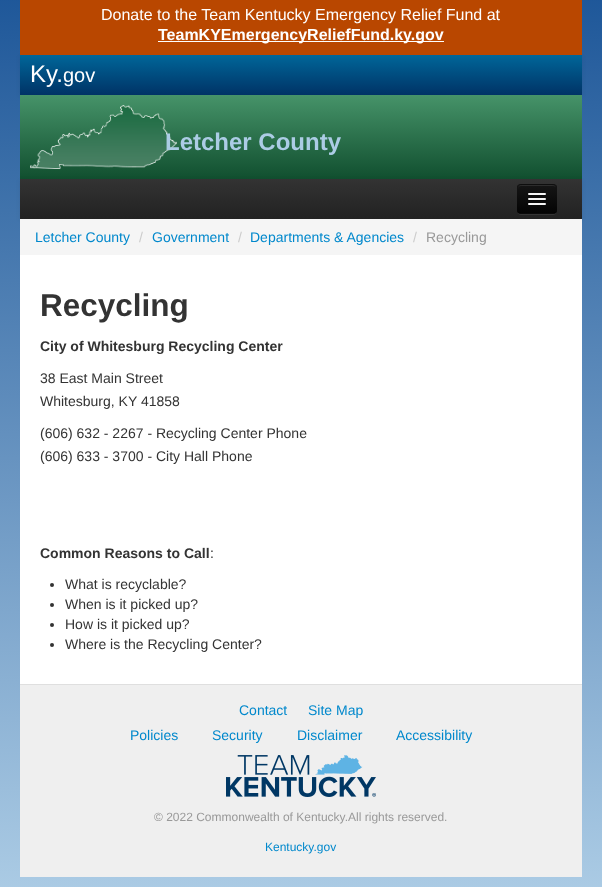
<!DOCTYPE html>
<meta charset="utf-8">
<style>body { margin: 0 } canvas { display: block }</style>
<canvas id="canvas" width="602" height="887"></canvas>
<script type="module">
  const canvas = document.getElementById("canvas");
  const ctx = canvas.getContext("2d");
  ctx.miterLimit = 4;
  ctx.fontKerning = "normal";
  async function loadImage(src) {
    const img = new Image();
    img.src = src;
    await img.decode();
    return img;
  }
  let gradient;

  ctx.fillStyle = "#ffffff";
  ctx.fillRect(0, 0, 602, 887);
  gradient = ctx.createLinearGradient(301, -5, 301, 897);
  gradient.addColorStop(0, "#1e5799");
  gradient.addColorStop(1, "#accce5");
  ctx.fillStyle = gradient;
  ctx.fillRect(0, 0, 602, 887);
  ctx.fillStyle = "rgba(0, 0, 0, 0.07)";
  ctx.filter = "blur(2px)";
  ctx.beginPath();
  ctx.rect(20, 56, 562, 40);
  ctx.fill();
  ctx.filter = "none";
  ctx.fillStyle = "#b94700";
  ctx.fillRect(20, 0, 562, 55);
  ctx.font = "16px Liberation Sans";
  ctx.fillStyle = "#ffffff";
  ctx.fillText("Donate to the Team Kentucky Emergency Relief Fund at", 101, 20);
  ctx.fillRect(158, 41, 286, 1);
  ctx.font = "bold 16px Liberation Sans";
  ctx.fillText("TeamKYEmergencyReliefFund.ky.gov", 158, 40);
  gradient = ctx.createLinearGradient(301, 55, 301, 95);
  gradient.addColorStop(0, "#006699");
  gradient.addColorStop(1, "#003366");
  ctx.fillStyle = gradient;
  ctx.fillRect(20, 55, 562, 40);
  ctx.font = "24px Liberation Sans";
  ctx.fillStyle = "#ffffff";
  ctx.fillText("Ky.", 30, 82);
  ctx.font = "20px Liberation Sans";
  ctx.fillText("gov", 63, 82);
  gradient = ctx.createLinearGradient(301, 95, 301, 179);
  gradient.addColorStop(0, "#469369");
  gradient.addColorStop(1, "#114f2f");
  ctx.fillStyle = gradient;
  ctx.fillRect(20, 95, 562, 84);
  ctx.drawImage(await loadImage("img1.png"), 30, 105, 147, 64);
  ctx.font = "bold 24px Liberation Sans";
  ctx.fillStyle = "#accce5";
  ctx.fillText("Letcher County", 165, 150);
  ctx.fillStyle = "rgba(0, 0, 0, 0.07)";
  ctx.filter = "blur(2px)";
  ctx.beginPath();
  ctx.rect(20, 180, 562, 40);
  ctx.fill();
  ctx.filter = "none";
  gradient = ctx.createLinearGradient(301, 179, 301, 219);
  gradient.addColorStop(0, "#333333");
  gradient.addColorStop(1, "#222222");
  ctx.fillStyle = gradient;
  ctx.fillRect(20, 179, 562, 40);
  ctx.fillStyle = "#343434";
  ctx.beginPath();
  ctx.moveTo(517, 210);
  ctx.bezierCurveTo(517, 216, 522, 215, 526, 215);
  ctx.lineTo(548, 215);
  ctx.bezierCurveTo(552, 215, 557, 216, 557, 210);
  ctx.bezierCurveTo(557, 212, 555, 214, 553, 214);
  ctx.lineTo(521, 214);
  ctx.bezierCurveTo(519, 214, 517, 212, 517, 210);
  ctx.closePath();
  ctx.fill();
  ctx.fillStyle = "#0e0e0e";
  ctx.beginPath();
  ctx.roundRect(517, 184, 40, 30, 4);
  ctx.fill();
  ctx.save();
  ctx.beginPath();
  ctx.roundRect(517, 184, 40, 30, 4);
  ctx.clip();
  gradient = ctx.createLinearGradient(537, 185, 537, 213);
  gradient.addColorStop(0, "#151515");
  gradient.addColorStop(1, "#040404");
  ctx.fillStyle = gradient;
  ctx.fillRect(517, 185, 40, 28);
  ctx.restore();
  ctx.fillStyle = "#2c2c2c";
  ctx.beginPath();
  ctx.moveTo(521, 186);
  ctx.lineTo(553, 186);
  ctx.bezierCurveTo(555, 186, 556, 187, 556, 189);
  ctx.bezierCurveTo(556, 184, 552, 185, 547.5, 185);
  ctx.lineTo(526.5, 185);
  ctx.bezierCurveTo(522, 185, 518, 184, 518, 189);
  ctx.bezierCurveTo(518, 187, 519, 186, 521, 186);
  ctx.closePath();
  ctx.fill();
  ctx.beginPath();
  ctx.moveTo(555.5, 212.5);
  ctx.bezierCurveTo(555, 213, 554, 213.5, 553, 213.5);
  ctx.lineTo(521, 213.5);
  ctx.bezierCurveTo(520, 213.5, 519, 213, 518.5, 212.5);
  ctx.strokeStyle = "rgba(0, 0, 0, 0.25)";
  ctx.stroke();
  ctx.fillStyle = "#0b0b0b";
  ctx.beginPath();
  ctx.moveTo(528, 194.5);
  ctx.bezierCurveTo(527, 196.5, 531.5, 196, 531.5, 196);
  ctx.lineTo(542.5, 196);
  ctx.bezierCurveTo(542.5, 196, 547, 196.5, 546, 194.5);
  ctx.bezierCurveTo(545, 195.5, 538.5, 195, 537, 195);
  ctx.bezierCurveTo(535.5, 195, 529, 195.5, 528, 194.5);
  ctx.closePath();
  ctx.fill();
  ctx.fillStyle = "#f5f5f5";
  ctx.beginPath();
  ctx.roundRect(528, 193, 18, 2, 1);
  ctx.fill();
  ctx.fillStyle = "#090909";
  ctx.beginPath();
  ctx.moveTo(528, 199.5);
  ctx.bezierCurveTo(527, 201.5, 531.5, 201, 531.5, 201);
  ctx.lineTo(542.5, 201);
  ctx.bezierCurveTo(542.5, 201, 547, 201.5, 546, 199.5);
  ctx.bezierCurveTo(545, 200.5, 538.5, 200, 537, 200);
  ctx.bezierCurveTo(535.5, 200, 529, 200.5, 528, 199.5);
  ctx.closePath();
  ctx.fill();
  ctx.fillStyle = "#f5f5f5";
  ctx.beginPath();
  ctx.roundRect(528, 198, 18, 2, 1);
  ctx.fill();
  ctx.beginPath();
  ctx.roundRect(528, 203, 18, 2, 1);
  ctx.fill();
  ctx.fillStyle = "#ffffff";
  ctx.fillRect(20, 255, 562, 429);
  ctx.fillStyle = "#f5f5f5";
  ctx.fillRect(20, 219, 562, 36);
  ctx.font = "14px Liberation Sans";
  ctx.fillStyle = "#0088cc";
  ctx.fillText("Letcher County", 35, 242);
  ctx.fillStyle = "#cccccc";
  ctx.fillText("/", 139, 242);
  ctx.fillStyle = "#0088cc";
  ctx.fillText("Government", 152, 242);
  ctx.fillStyle = "#cccccc";
  ctx.fillText("/", 238, 242);
  ctx.fillStyle = "#0088cc";
  ctx.fillText("Departments & Agencies", 250, 242);
  ctx.fillStyle = "#cccccc";
  ctx.fillText("/", 413, 242);
  ctx.fillStyle = "#999999";
  ctx.fillText("Recycling", 426, 242);
  ctx.font = "bold 31.5px Liberation Sans";
  ctx.fillStyle = "#333333";
  ctx.fillText("Recycling", 40, 316);
  ctx.font = "bold 14px Liberation Sans";
  ctx.fillText("City of Whitesburg Recycling Center", 40, 351);
  ctx.font = "14px Liberation Sans";
  ctx.fillText("38 East Main Street", 40, 383);
  ctx.fillText("Whitesburg, KY 41858", 40, 406);
  ctx.fillText("(606) 632 - 2267 - Recycling Center Phone", 40, 438);
  ctx.fillText("(606) 633 - 3700 - City Hall Phone", 40, 461);
  ctx.font = "bold 14px Liberation Sans";
  ctx.fillText("Common Reasons to Call", 40, 558);
  ctx.font = "14px Liberation Sans";
  ctx.fillText(":", 210, 558);
  ctx.beginPath();
  ctx.arc(52, 585, 2, 0, Math.PI * 2);
  ctx.fill();
  ctx.fillText("What is recyclable?", 65, 589);
  ctx.beginPath();
  ctx.arc(52, 605, 2, 0, Math.PI * 2);
  ctx.fill();
  ctx.fillText("When is it picked up?", 65, 609);
  ctx.beginPath();
  ctx.arc(52, 625, 2, 0, Math.PI * 2);
  ctx.fill();
  ctx.fillText("How is it picked up?", 65, 629);
  ctx.beginPath();
  ctx.arc(52, 645, 2, 0, Math.PI * 2);
  ctx.fill();
  ctx.fillText("Where is the Recycling Center?", 65, 649);
  ctx.fillStyle = "#efefef";
  ctx.fillRect(20, 685, 562, 192);
  ctx.fillStyle = "#dfdfdf";
  ctx.fillRect(20, 684, 562, 1);
  ctx.fillStyle = "#0088cc";
  ctx.fillText("Contact", 239, 715);
  ctx.fillText("Site Map", 308, 715);
  ctx.fillText("Policies", 130, 740);
  ctx.fillText("Security", 212, 740);
  ctx.fillText("Disclaimer", 297, 740);
  ctx.fillText("Accessibility", 396, 740);
  ctx.drawImage(await loadImage("img2.png"), 226, 755, 150, 42);
  ctx.font = "12px Liberation Sans";
  ctx.fillStyle = "#999999";
  ctx.fillText("© 2022 Commonwealth of Kentucky.All rights reserved.", 154, 821);
  ctx.fillStyle = "#0088cc";
  ctx.fillText("Kentucky.gov", 265, 851);
</script>
